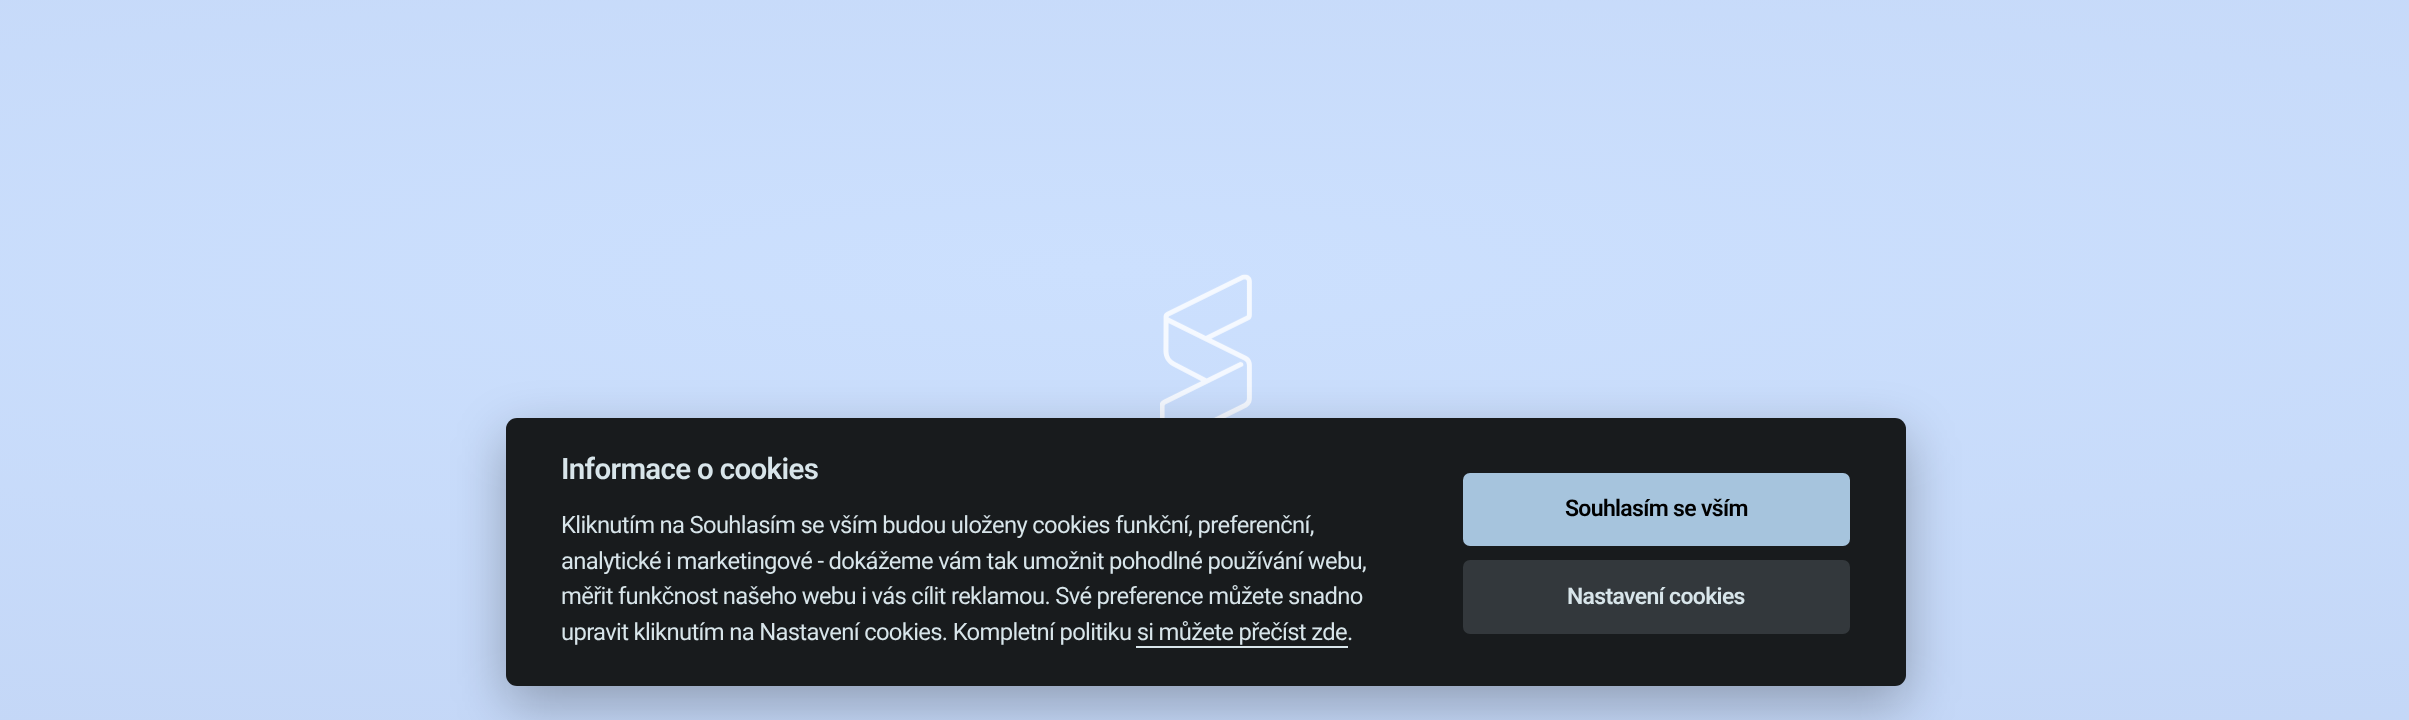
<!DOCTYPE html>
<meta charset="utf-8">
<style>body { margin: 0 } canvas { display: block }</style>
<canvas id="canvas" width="2409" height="720"></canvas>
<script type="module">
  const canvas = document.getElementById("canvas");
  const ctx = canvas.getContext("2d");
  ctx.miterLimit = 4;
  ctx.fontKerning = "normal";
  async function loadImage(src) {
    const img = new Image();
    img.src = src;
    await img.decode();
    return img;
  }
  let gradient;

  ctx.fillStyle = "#ffffff";
  ctx.fillRect(0, 0, 2409, 720);
  gradient = ctx.createRadialGradient(1099, 1687.1, 0, 1099, 1687.1, 3462);
  gradient.addColorStop(0, "#cce0fe");
  gradient.addColorStop(1, "#c3d6f6");
  ctx.fillStyle = gradient;
  ctx.beginPath();
  ctx.rect(0, 0, 2409, 720);
  ctx.save();
  ctx.clip();
  ctx.scale(1, 552 / 3462);
  ctx.fillRect(0, 0, 2409, 4516);
  ctx.restore();
  ctx.drawImage(await loadImage("img1.png"), 1160, 274, 92, 144);
  ctx.fillStyle = "rgba(2, 2, 3, 0.28)";
  ctx.filter = "blur(26px)";
  ctx.beginPath();
  ctx.roundRect(506, 436, 1400, 268, 11);
  ctx.fill();
  ctx.filter = "none";
  ctx.fillStyle = "#181b1d";
  ctx.beginPath();
  ctx.roundRect(506, 418, 1400, 268, 11);
  ctx.fill();
  ctx.letterSpacing = "-0.67px";
  ctx.font = "600 29.5px Roboto";
  ctx.fillStyle = "#d8e5ea";
  ctx.fillText("Informace o cookies", 561, 479);
  ctx.font = "23.8px Roboto";
  ctx.fillText("Kliknutím na Souhlasím se vším budou uloženy cookies funkční, preferenční,", 561, 533);
  ctx.fillText("analytické i marketingové - dokážeme vám tak umožnit pohodlné používání webu,", 561, 569);
  ctx.fillText("měřit funkčnost našeho webu i vás cílit reklamou. Své preference můžete snadno", 561, 604);
  ctx.fillText("upravit kliknutím na Nastavení cookies. Kompletní politiku si můžete přečíst zde", 561, 640);
  ctx.fillText(".", 1347, 640);
  ctx.fillRect(1136, 646, 212, 2);
  ctx.fillStyle = "#a6c4dd";
  ctx.beginPath();
  ctx.roundRect(1463, 473, 387, 73, 7);
  ctx.fill();
  ctx.font = "600 23px Roboto";
  ctx.fillStyle = "#000000";
  ctx.fillText("Souhlasím se vším", 1565, 516);
  ctx.fillStyle = "#33383c";
  ctx.beginPath();
  ctx.roundRect(1463, 560, 387, 74, 7);
  ctx.fill();
  ctx.fillStyle = "#d8e5ea";
  ctx.fillText("Nastavení cookies", 1567, 604);
</script>
